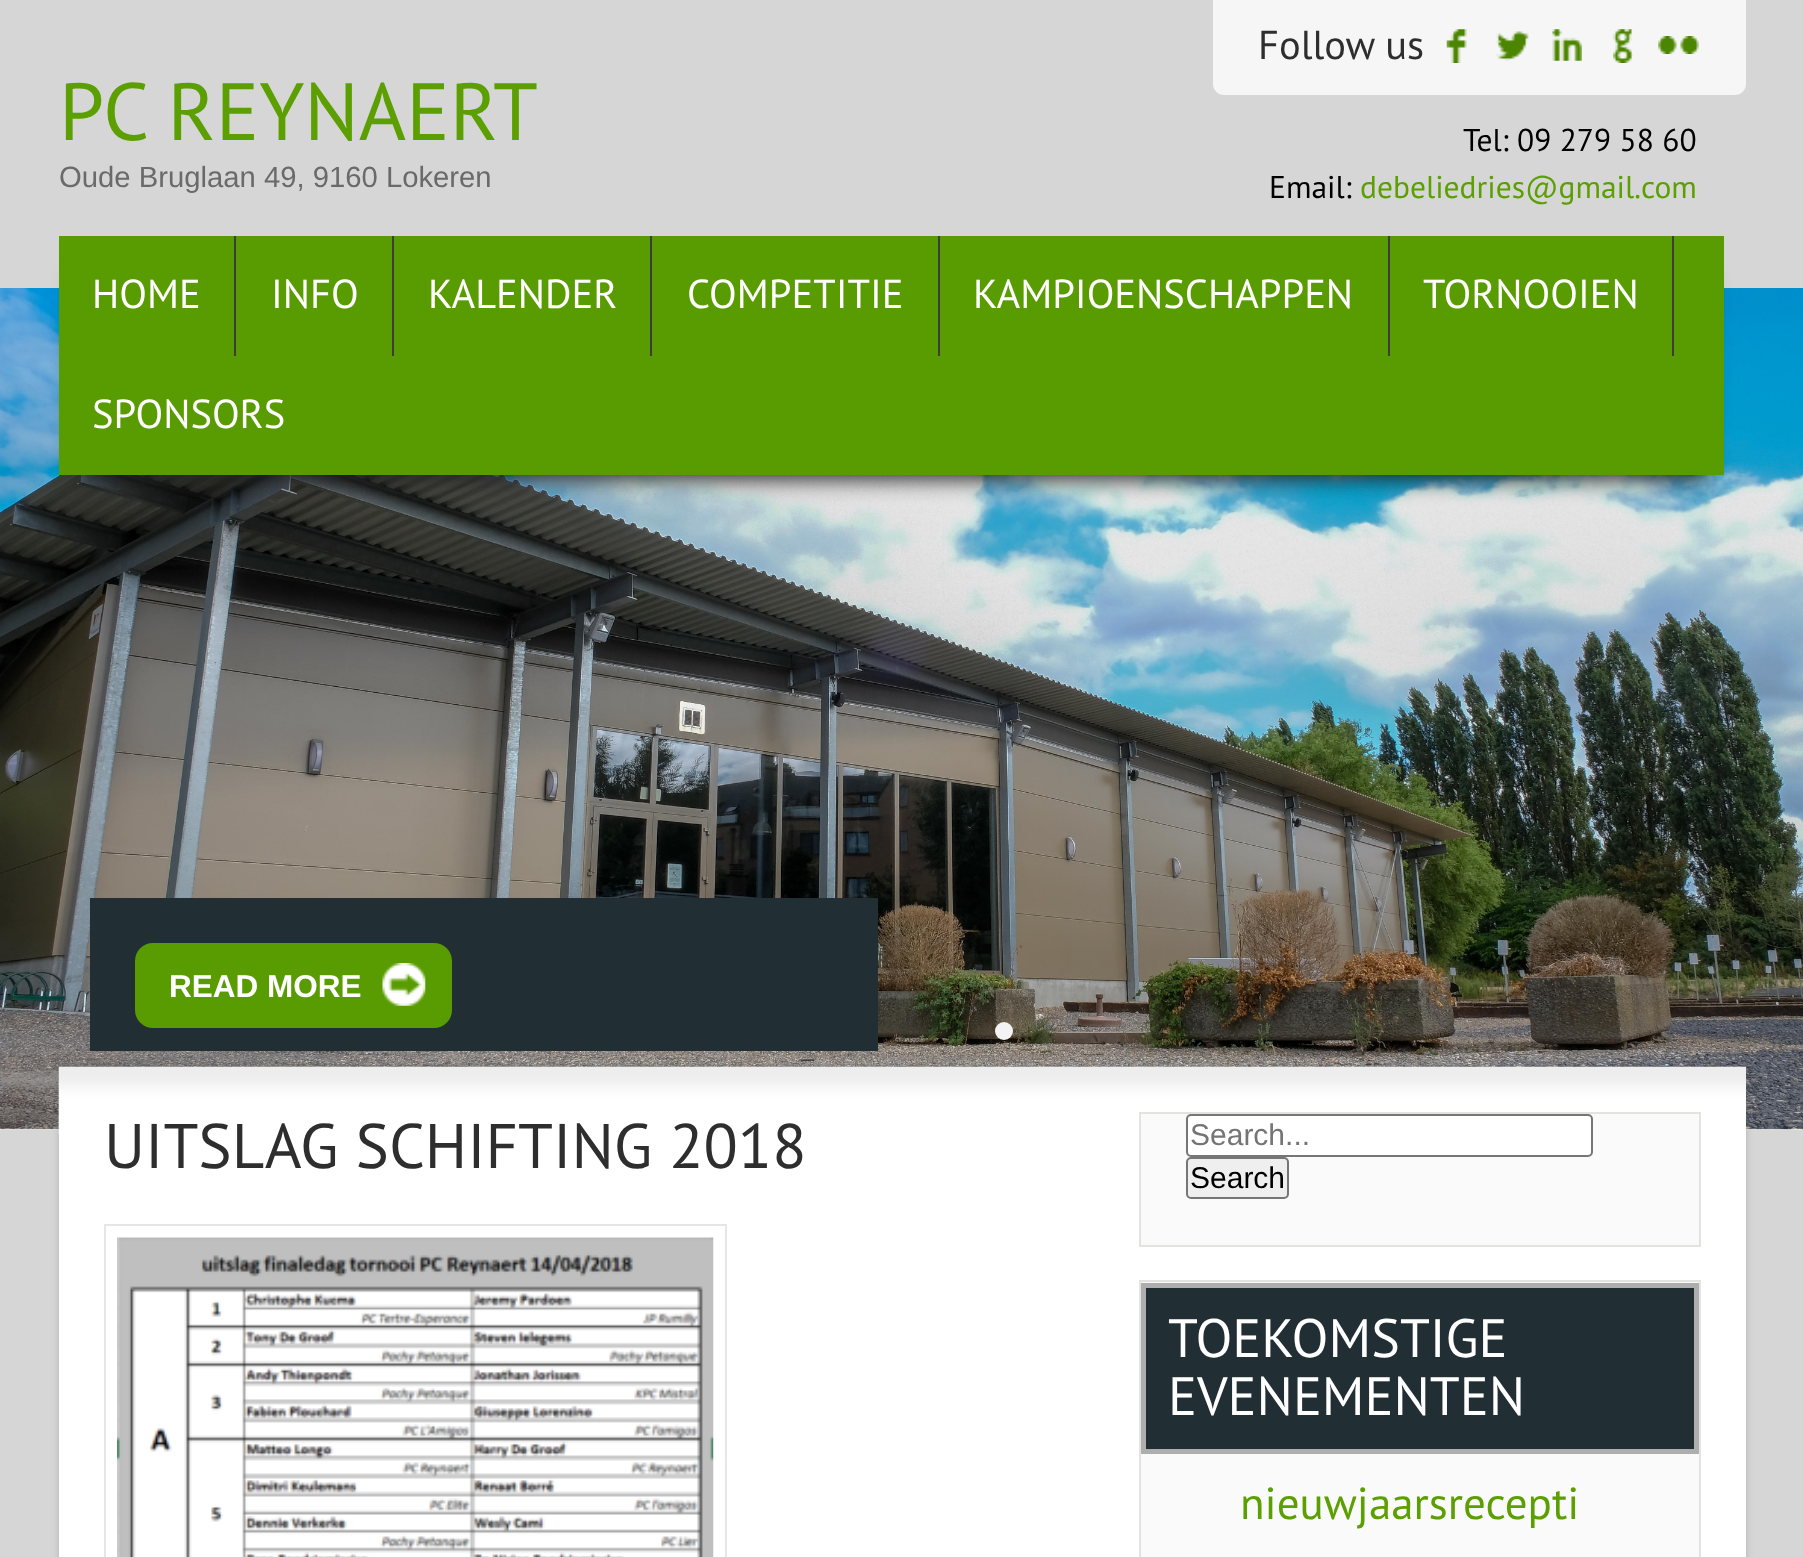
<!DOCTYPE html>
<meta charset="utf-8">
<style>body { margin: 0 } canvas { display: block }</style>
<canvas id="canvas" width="1803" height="1557"></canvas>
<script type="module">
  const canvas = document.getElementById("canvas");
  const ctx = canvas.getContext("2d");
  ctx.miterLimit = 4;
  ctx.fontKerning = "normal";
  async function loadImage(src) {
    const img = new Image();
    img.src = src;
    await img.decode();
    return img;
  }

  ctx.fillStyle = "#d6d6d6";
  ctx.fillRect(0, 0, 1803, 1557);
  ctx.font = "81px PT Sans";
  ctx.fillStyle = "#5b9f01";
  ctx.fillText("PC REYNAERT", 59, 140);
  ctx.font = "29.25px Liberation Sans";
  ctx.fillStyle = "#6a6a6a";
  ctx.fillText("Oude Bruglaan 49, 9160 Lokeren", 59, 187);
  ctx.fillStyle = "#f6f6f6";
  ctx.beginPath();
  ctx.roundRect(1213, 0, 533, 95, [0, 0, 11, 11]);
  ctx.fill();
  ctx.font = "40.5px PT Sans";
  ctx.fillStyle = "#2e2e2e";
  ctx.fillText("Follow us", 1258, 59);
  ctx.drawImage(await loadImage("img1.png"), 1446, 29, 21, 34);
  ctx.drawImage(await loadImage("img2.png"), 1496, 31, 33, 30);
  ctx.drawImage(await loadImage("img3.png"), 1552, 29, 30, 32);
  ctx.drawImage(await loadImage("img4.png"), 1613, 29, 21, 34);
  ctx.drawImage(await loadImage("img5.png"), 1658, 36, 41, 18);
  ctx.font = "31.5px PT Sans";
  ctx.fillStyle = "#000000";
  ctx.fillText("Tel: 09 279 58 60", 1463, 151);
  ctx.fillText("Email:", 1269, 198);
  ctx.fillStyle = "#5b9f01";
  ctx.fillText("debeliedries@gmail.com", 1360, 198);
  ctx.fillStyle = "#ffffff";
  ctx.fillRect(0, 1129, 1803, 1);
  ctx.drawImage(await loadImage("img6.png"), 0, 288, 1803, 842);
  ctx.fillStyle = "#222222";
  ctx.filter = "blur(11px)";
  ctx.beginPath();
  ctx.rect(77, 277, 1629, 202);
  ctx.fill();
  ctx.filter = "none";
  ctx.fillStyle = "#599c01";
  ctx.fillRect(59, 236, 1665, 239);
  ctx.fillStyle = "#3d3d3d";
  ctx.fillRect(234, 236, 2, 120);
  ctx.font = "40.5px PT Sans";
  ctx.fillStyle = "#ffffff";
  ctx.fillText("HOME", 92, 308);
  ctx.fillStyle = "#3d3d3d";
  ctx.fillRect(392, 236, 2, 120);
  ctx.fillStyle = "#ffffff";
  ctx.fillText("INFO", 271, 308);
  ctx.fillStyle = "#3d3d3d";
  ctx.fillRect(650, 236, 2, 120);
  ctx.fillStyle = "#ffffff";
  ctx.fillText("KALENDER", 428, 308);
  ctx.fillStyle = "#3d3d3d";
  ctx.fillRect(938, 236, 2, 120);
  ctx.fillStyle = "#ffffff";
  ctx.fillText("COMPETITIE", 687, 308);
  ctx.fillStyle = "#3d3d3d";
  ctx.fillRect(1388, 236, 2, 120);
  ctx.fillStyle = "#ffffff";
  ctx.fillText("KAMPIOENSCHAPPEN", 973, 308);
  ctx.fillStyle = "#3d3d3d";
  ctx.fillRect(1672, 236, 2, 120);
  ctx.fillStyle = "#ffffff";
  ctx.fillText("TORNOOIEN", 1423, 308);
  ctx.fillText("SPONSORS", 92, 428);
  ctx.fillStyle = "#212e33";
  ctx.fillRect(90, 898, 788, 153);
  ctx.fillStyle = "#599c01";
  ctx.beginPath();
  ctx.roundRect(135, 943, 317, 85, 18);
  ctx.fill();
  ctx.drawImage(await loadImage("img7.png"), 382, 963, 44, 43);
  ctx.font = "bold 31.5px Liberation Sans";
  ctx.fillStyle = "#ffffff";
  ctx.fillText("READ MORE", 169, 997);
  ctx.fillStyle = "#f3f3f3";
  ctx.beginPath();
  ctx.arc(1004, 1031, 9, 0, Math.PI * 2);
  ctx.fill();
  ctx.fillStyle = "rgba(100, 100, 100, 0.3)";
  ctx.filter = "blur(3.5px)";
  ctx.beginPath();
  ctx.rect(59, 1067, 1687, 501);
  ctx.fill();
  ctx.filter = "none";
  ctx.fillStyle = "#ffffff";
  ctx.fillRect(59, 1067, 1687, 490);
  ctx.drawImage(await loadImage("img8.png"), 58, 1066, 1688, 68);
  ctx.font = "63px PT Sans";
  ctx.fillStyle = "#2e2e2e";
  ctx.fillText("UITSLAG SCHIFTING 2018", 104, 1168);
  ctx.strokeStyle = "#e7e6e6";
  ctx.lineWidth = 2;
  ctx.strokeRect(105, 1225, 621, 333);
  ctx.drawImage(await loadImage("img9.png"), 117, 1237, 597, 320);
  ctx.fillStyle = "#fafafa";
  ctx.beginPath();
  ctx.rect(1140, 1113, 560, 133);
  ctx.fill();
  ctx.strokeStyle = "#e3e3df";
  ctx.stroke();
  ctx.fillStyle = "#ffffff";
  ctx.beginPath();
  ctx.roundRect(1187, 1115, 405, 41, 4);
  ctx.fill();
  ctx.strokeStyle = "#767676";
  ctx.stroke();
  ctx.font = "30px Liberation Sans";
  ctx.fillStyle = "#757575";
  ctx.fillText("Search...", 1190, 1145);
  ctx.fillStyle = "#efefef";
  ctx.beginPath();
  ctx.roundRect(1187, 1158, 101, 40, 4);
  ctx.fill();
  ctx.stroke();
  ctx.fillStyle = "#000000";
  ctx.fillText("Search", 1190, 1188);
  ctx.fillStyle = "#fafafa";
  ctx.beginPath();
  ctx.rect(1140, 1281, 560, 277);
  ctx.fill();
  ctx.strokeStyle = "#e3e3df";
  ctx.stroke();
  ctx.fillStyle = "#212e33";
  ctx.beginPath();
  ctx.rect(1143.5, 1285.5, 553, 166);
  ctx.fill();
  ctx.strokeStyle = "#aeaeae";
  ctx.lineWidth = 5;
  ctx.stroke();
  ctx.font = "54px PT Sans";
  ctx.fillStyle = "#ffffff";
  ctx.fillText("TOEKOMSTIGE", 1168, 1357);
  ctx.fillText("EVENEMENTEN", 1168, 1415);
  ctx.font = "45px PT Sans";
  ctx.fillStyle = "#5b9f01";
  ctx.fillText("nieuwjaarsrecepti", 1240, 1519);
</script>
